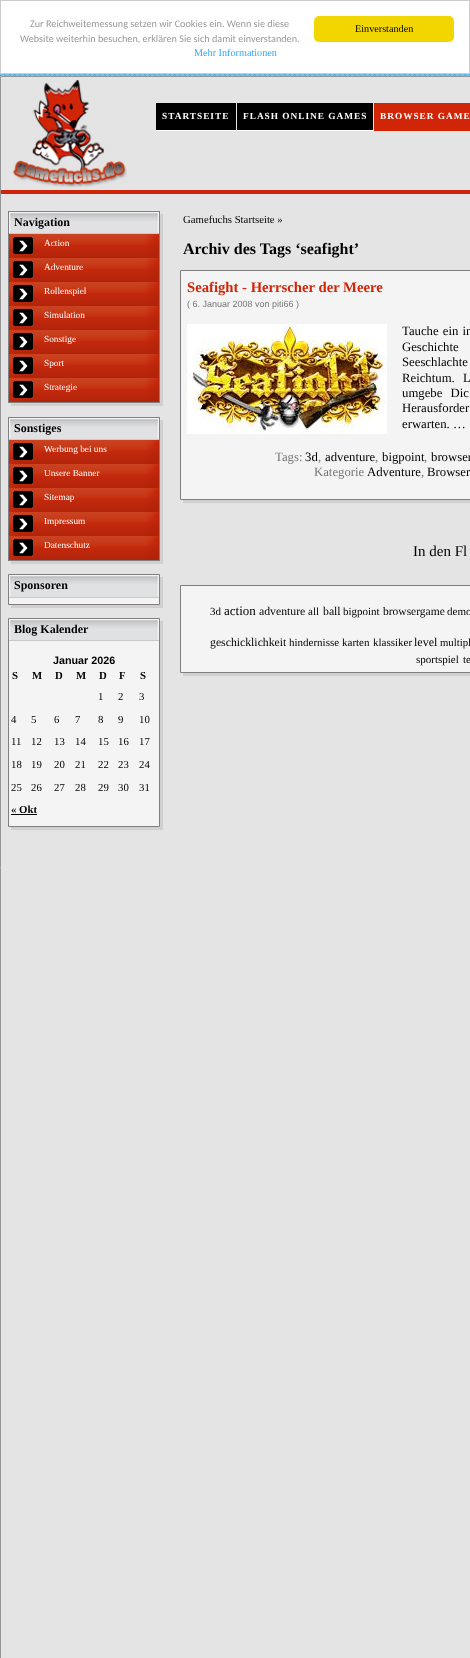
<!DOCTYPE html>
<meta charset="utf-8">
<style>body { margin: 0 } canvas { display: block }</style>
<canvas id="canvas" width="470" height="1658"></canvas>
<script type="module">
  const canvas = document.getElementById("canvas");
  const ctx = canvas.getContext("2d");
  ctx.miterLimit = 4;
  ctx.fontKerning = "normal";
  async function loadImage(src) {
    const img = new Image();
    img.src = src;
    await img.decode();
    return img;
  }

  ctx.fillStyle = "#ffffff";
  ctx.fillRect(0, 0, 470, 1658);
  ctx.drawImage(await loadImage("img1.png"), 0, 74, 470, 2);
  ctx.strokeStyle = "#cccccc";
  ctx.strokeRect(0.5, 0.5, 469, 73);
  ctx.font = "10.2px Carlito";
  ctx.fillStyle = "#999999";
  ctx.fillText("Zur Reichweitemessung setzen wir Cookies ein. Wenn sie diese", 30, 27);
  ctx.fillText("Website weiterhin besuchen, erklären Sie sich damit einverstanden.", 20, 42);
  ctx.font = "10.2px Liberation Serif";
  ctx.fillStyle = "#31a8f0";
  ctx.fillText("Mehr Informationen", 194, 56);
  ctx.fillStyle = "#f1d600";
  ctx.beginPath();
  ctx.roundRect(314, 16, 140, 26, 5);
  ctx.fill();
  ctx.fillStyle = "#000000";
  ctx.fillText("Einverstanden", 355, 32);
  ctx.fillStyle = "#e4e4e4";
  ctx.beginPath();
  ctx.rect(0.5, 76.5, 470, 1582);
  ctx.fill();
  ctx.strokeStyle = "#959596";
  ctx.stroke();
  ctx.drawImage(await loadImage("img2.png"), 13, 80, 114, 108);
  ctx.fillStyle = "#000000";
  ctx.fillRect(156, 103, 80, 27);
  ctx.fillStyle = "#ffffff";
  ctx.fillRect(156, 130, 80, 1);
  ctx.letterSpacing = "1px";
  ctx.font = "bold 9.3px Liberation Serif";
  ctx.fillText("STARTSEITE", 162, 119);
  ctx.fillStyle = "#000000";
  ctx.fillRect(237, 103, 136, 27);
  ctx.fillStyle = "#ffffff";
  ctx.fillRect(237, 130, 136, 1);
  ctx.fillText("FLASH ONLINE GAMES", 243, 119);
  ctx.fillStyle = "#d02607";
  ctx.fillRect(374, 103, 96, 28);
  ctx.fillStyle = "#ffffff";
  ctx.fillText("BROWSER GAME", 380, 119);
  ctx.fillStyle = "#d02607";
  ctx.fillRect(1, 190, 469, 4);
  ctx.fillStyle = "#d1cfd0";
  ctx.fillRect(11, 214, 152, 192);
  ctx.fillStyle = "#f4f4f4";
  ctx.fillRect(9, 212, 150, 21);
  ctx.strokeStyle = "#808080";
  ctx.strokeRect(8.5, 211.5, 151, 191);
  ctx.drawImage(await loadImage("img3.png"), 10, 213, 148, 20);
  ctx.fillStyle = "#c9cacc";
  ctx.fillRect(9, 233, 150, 1);
  ctx.letterSpacing = "0px";
  ctx.font = "bold 12px Liberation Serif";
  ctx.fillStyle = "#000000";
  ctx.fillText("Navigation", 14, 226);
  ctx.drawImage(await loadImage("img4.png"), 9, 234, 150, 24);
  ctx.font = "9.3px Liberation Serif";
  ctx.fillStyle = "#ffffff";
  ctx.fillText("Action", 44, 246);
  ctx.drawImage(await loadImage("img4.png"), 9, 258, 150, 24);
  ctx.fillText("Adventure", 44, 270);
  ctx.drawImage(await loadImage("img4.png"), 9, 282, 150, 24);
  ctx.fillText("Rollenspiel", 44, 294);
  ctx.drawImage(await loadImage("img4.png"), 9, 306, 150, 24);
  ctx.fillText("Simulation", 44, 318);
  ctx.drawImage(await loadImage("img4.png"), 9, 330, 150, 24);
  ctx.fillText("Sonstige", 44, 342);
  ctx.drawImage(await loadImage("img4.png"), 9, 354, 150, 24);
  ctx.fillText("Sport", 44, 366);
  ctx.drawImage(await loadImage("img4.png"), 9, 378, 150, 24);
  ctx.fillText("Strategie", 44, 390);
  ctx.fillStyle = "#d1cfd0";
  ctx.fillRect(11, 420, 152, 144);
  ctx.fillStyle = "#f4f4f4";
  ctx.fillRect(9, 418, 150, 21);
  ctx.strokeRect(8.5, 417.5, 151, 143);
  ctx.drawImage(await loadImage("img3.png"), 10, 419, 148, 20);
  ctx.fillStyle = "#c9cacc";
  ctx.fillRect(9, 439, 150, 1);
  ctx.font = "bold 12px Liberation Serif";
  ctx.fillStyle = "#000000";
  ctx.fillText("Sonstiges", 14, 432);
  ctx.drawImage(await loadImage("img4.png"), 9, 440, 150, 24);
  ctx.font = "9.3px Liberation Serif";
  ctx.fillStyle = "#ffffff";
  ctx.fillText("Werbung bei uns", 44, 452);
  ctx.drawImage(await loadImage("img4.png"), 9, 464, 150, 24);
  ctx.fillText("Unsere Banner", 44, 476);
  ctx.drawImage(await loadImage("img4.png"), 9, 488, 150, 24);
  ctx.fillText("Sitemap", 44, 500);
  ctx.drawImage(await loadImage("img4.png"), 9, 512, 150, 24);
  ctx.fillText("Impressum", 44, 524);
  ctx.drawImage(await loadImage("img4.png"), 9, 536, 150, 24);
  ctx.fillText("Datenschutz", 44, 548);
  ctx.fillStyle = "#d1cfd0";
  ctx.fillRect(11, 577, 152, 31);
  ctx.fillStyle = "#f4f4f4";
  ctx.beginPath();
  ctx.rect(8.5, 574.5, 151, 30);
  ctx.fill();
  ctx.stroke();
  ctx.drawImage(await loadImage("img5.png"), 10, 576, 148, 21);
  ctx.fillStyle = "#c9cacc";
  ctx.fillRect(9, 597, 150, 1);
  ctx.font = "bold 12px Liberation Serif";
  ctx.fillStyle = "#000000";
  ctx.fillText("Sponsoren", 14, 589);
  ctx.fillStyle = "#d1cfd0";
  ctx.fillRect(11, 621, 152, 209);
  ctx.fillStyle = "#f4f4f4";
  ctx.beginPath();
  ctx.rect(8.5, 618.5, 151, 208);
  ctx.fill();
  ctx.stroke();
  ctx.drawImage(await loadImage("img3.png"), 10, 620, 148, 20);
  ctx.fillStyle = "#c9cacc";
  ctx.fillRect(9, 640, 150, 1);
  ctx.fillStyle = "#000000";
  ctx.fillText("Blog Kalender", 14, 633);
  ctx.font = "bold 10.75px Liberation Sans";
  ctx.fillText("Januar 2026", 53, 664);
  ctx.font = "bold 10.75px Liberation Serif";
  ctx.fillText("S", 12, 679);
  ctx.fillText("M", 32, 679);
  ctx.fillText("D", 55, 679);
  ctx.fillText("M", 76, 679);
  ctx.fillText("D", 99, 679);
  ctx.fillText("F", 119, 679);
  ctx.fillText("S", 140, 679);
  ctx.font = "10.75px Liberation Serif";
  ctx.fillText("1", 98, 700);
  ctx.fillText("2", 118, 700);
  ctx.fillText("3", 139, 700);
  ctx.fillText("4", 11, 723);
  ctx.fillText("5", 31, 723);
  ctx.fillText("6", 54, 723);
  ctx.fillText("7", 75, 723);
  ctx.fillText("8", 98, 723);
  ctx.fillText("9", 118, 723);
  ctx.fillText("10", 139, 723);
  ctx.fillText("11", 11, 745);
  ctx.fillText("12", 31, 745);
  ctx.fillText("13", 54, 745);
  ctx.fillText("14", 75, 745);
  ctx.fillText("15", 98, 745);
  ctx.fillText("16", 118, 745);
  ctx.fillText("17", 139, 745);
  ctx.fillText("18", 11, 768);
  ctx.fillText("19", 31, 768);
  ctx.fillText("20", 54, 768);
  ctx.fillText("21", 75, 768);
  ctx.fillText("22", 98, 768);
  ctx.fillText("23", 118, 768);
  ctx.fillText("24", 139, 768);
  ctx.fillText("25", 11, 791);
  ctx.fillText("26", 31, 791);
  ctx.fillText("27", 54, 791);
  ctx.fillText("28", 75, 791);
  ctx.fillText("29", 98, 791);
  ctx.fillText("30", 118, 791);
  ctx.fillText("31", 139, 791);
  ctx.font = "bold 10.75px Liberation Serif";
  ctx.fillText("« Okt", 11, 813);
  ctx.fillRect(11, 814, 26, 1);
  ctx.font = "10.75px Liberation Serif";
  ctx.fillText("Gamefuchs Startseite »", 183, 223);
  ctx.font = "bold 16px Liberation Serif";
  ctx.fillText("Archiv des Tags ‘seafight’", 183, 254);
  ctx.fillStyle = "#d1cfd0";
  ctx.fillRect(183, 500, 287, 3);
  ctx.fillStyle = "#f4f4f4";
  ctx.beginPath();
  ctx.rect(180.5, 270.5, 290, 229);
  ctx.fill();
  ctx.stroke();
  ctx.font = "bold 14.7px Liberation Serif";
  ctx.fillStyle = "#d02607";
  ctx.fillText("Seafight - Herrscher der Meere", 187, 292);
  ctx.font = "9px Liberation Sans";
  ctx.fillStyle = "#777777";
  ctx.fillText("( 6. Januar 2008 von piti66 )", 187, 307);
  ctx.drawImage(await loadImage("img6.png"), 187, 324, 200, 110);
  ctx.wordSpacing = "1px";
  ctx.font = "12.75px Liberation Serif";
  ctx.fillStyle = "#000000";
  ctx.fillText("Tauche ein in", 402, 335);
  ctx.wordSpacing = "10px";
  ctx.fillText("Geschichte", 402, 351);
  ctx.wordSpacing = "3px";
  ctx.fillText("Seeschlachte", 402, 366);
  ctx.wordSpacing = "5px";
  ctx.fillText("Reichtum. L", 402, 382);
  ctx.fillText("umgebe Dic", 402, 397);
  ctx.wordSpacing = "1px";
  ctx.fillText("Herausforder", 402, 412);
  ctx.wordSpacing = "0px";
  ctx.fillText("erwarten. …", 402, 428);
  ctx.fillStyle = "#777777";
  ctx.fillText("Tags:", 275, 461);
  ctx.fillStyle = "#000000";
  ctx.fillText("3d", 305, 461);
  ctx.fillStyle = "#777777";
  ctx.fillText(",", 318, 461);
  ctx.fillStyle = "#000000";
  ctx.fillText("adventure", 325, 461);
  ctx.fillStyle = "#777777";
  ctx.fillText(",", 375, 461);
  ctx.fillStyle = "#000000";
  ctx.fillText("bigpoint", 382, 461);
  ctx.fillStyle = "#777777";
  ctx.fillText(",", 424, 461);
  ctx.fillStyle = "#000000";
  ctx.fillText("browser", 431, 461);
  ctx.fillStyle = "#777777";
  ctx.fillText("Kategorie", 314, 476);
  ctx.fillStyle = "#000000";
  ctx.fillText("Adventure", 367, 476);
  ctx.fillStyle = "#777777";
  ctx.fillText(",", 421, 476);
  ctx.fillStyle = "#000000";
  ctx.fillText("Browser", 427, 476);
  ctx.font = "15px Liberation Serif";
  ctx.fillText("In den Fl", 413, 556);
  ctx.fillStyle = "#d1cfd0";
  ctx.fillRect(183, 673, 287, 3);
  ctx.fillStyle = "#f4f4f4";
  ctx.beginPath();
  ctx.rect(180.5, 585.5, 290, 87);
  ctx.fill();
  ctx.stroke();
  ctx.font = "11px Liberation Serif";
  ctx.fillStyle = "#000000";
  ctx.fillText("3d", 210, 615);
  ctx.font = "13px Liberation Serif";
  ctx.fillText("action", 224, 615);
  ctx.font = "11.75px Liberation Serif";
  ctx.fillText("adventure", 259, 615);
  ctx.font = "11px Liberation Serif";
  ctx.fillText("all", 308, 615);
  ctx.font = "11.75px Liberation Serif";
  ctx.fillText("ball", 323, 615);
  ctx.font = "11px Liberation Serif";
  ctx.fillText("bigpoint", 343, 615);
  ctx.font = "11.5px Liberation Serif";
  ctx.fillText("browsergame", 383, 615);
  ctx.font = "11px Liberation Serif";
  ctx.fillText("demo", 447, 615);
  ctx.font = "11.75px Liberation Serif";
  ctx.fillText("geschicklichkeit", 210, 646);
  ctx.font = "11px Liberation Serif";
  ctx.fillText("hindernisse", 289, 646);
  ctx.fillText("karten", 342, 646);
  ctx.fillText("klassiker", 373, 646);
  ctx.font = "12px Liberation Serif";
  ctx.fillText("level", 414, 646);
  ctx.font = "10.75px Liberation Serif";
  ctx.fillText("multipl", 440, 646);
  ctx.font = "11px Liberation Serif";
  ctx.fillText("sportspiel", 416, 663);
  ctx.fillText("te", 463, 663);
</script>
